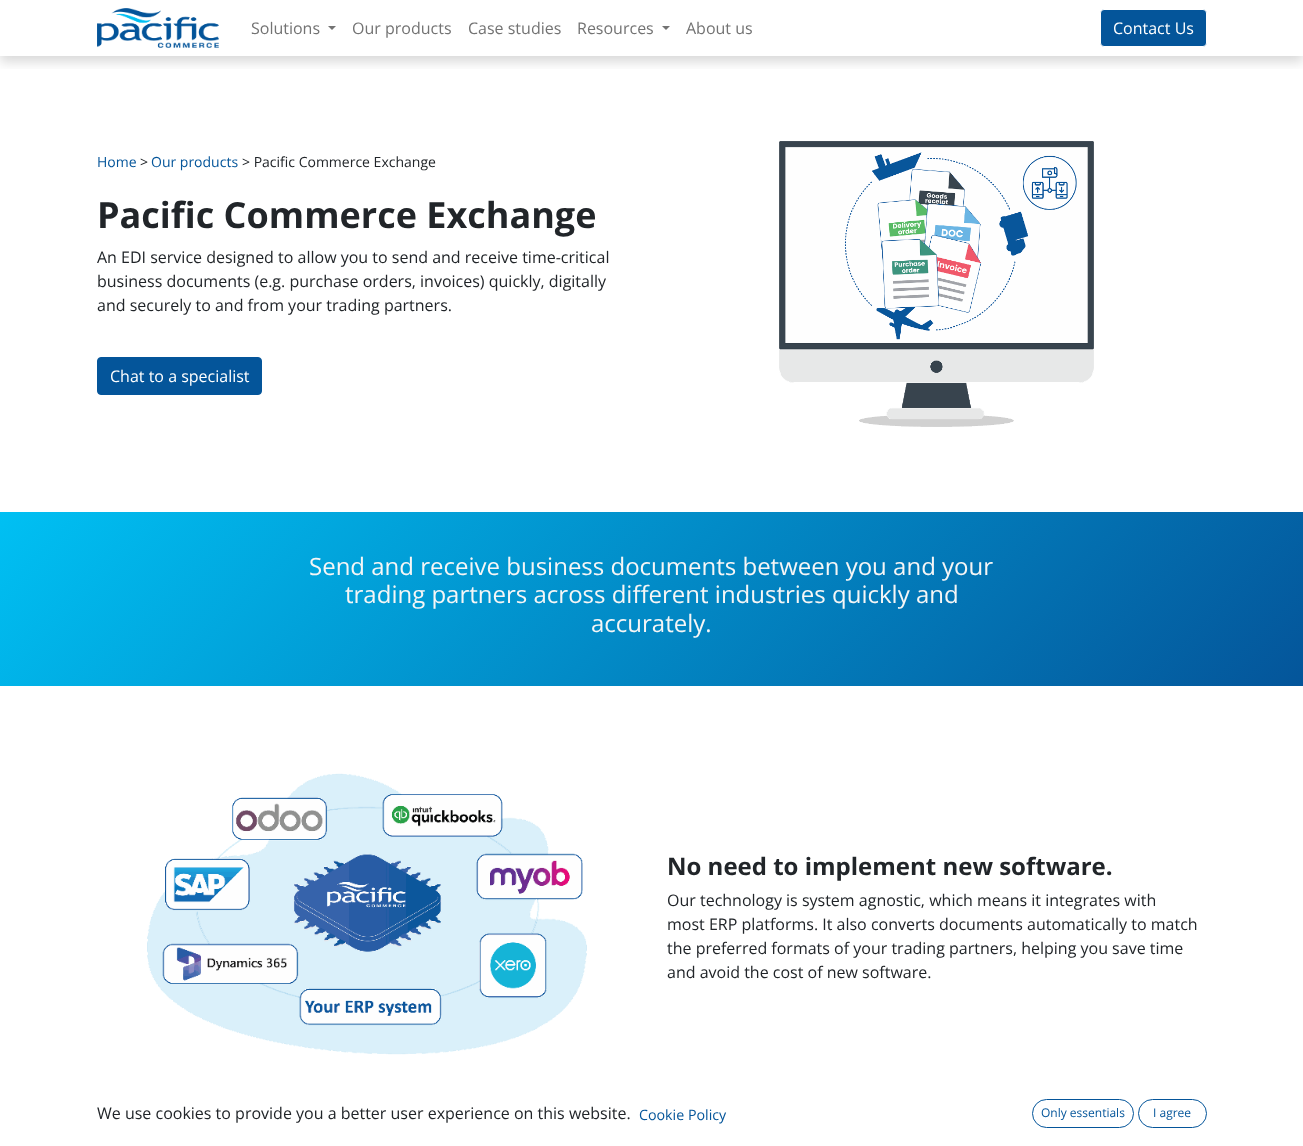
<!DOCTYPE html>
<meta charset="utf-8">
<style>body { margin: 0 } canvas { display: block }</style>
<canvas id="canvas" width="1303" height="1146"></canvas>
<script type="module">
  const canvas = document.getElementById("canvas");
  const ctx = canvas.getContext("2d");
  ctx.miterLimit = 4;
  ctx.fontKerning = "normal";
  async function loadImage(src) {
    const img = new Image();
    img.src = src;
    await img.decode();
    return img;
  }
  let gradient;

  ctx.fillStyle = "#ffffff";
  ctx.fillRect(0, 0, 1303, 1146);
  ctx.save();
  ctx.beginPath();
  ctx.rect(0, 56, 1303, 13);
  ctx.clip();
  ctx.fillStyle = "rgba(0, 0, 0, 0.15)";
  ctx.filter = "blur(6px)";
  ctx.beginPath();
  ctx.rect(0, 6, 1303, 56);
  ctx.fill();
  ctx.filter = "none";
  ctx.restore();
  ctx.drawImage(await loadImage("img1.png"), 97, 8, 122, 40);
  ctx.font = "16px Open Sans";
  ctx.fillStyle = "#737373";
  ctx.fillText("Solutions", 251, 34);
  ctx.beginPath();
  ctx.moveTo(328, 26);
  ctx.lineTo(336, 26);
  ctx.lineTo(332, 30);
  ctx.closePath();
  ctx.fill();
  ctx.fillText("Our products", 352, 34);
  ctx.fillText("Case studies", 468, 34);
  ctx.fillText("Resources", 577, 34);
  ctx.beginPath();
  ctx.moveTo(662, 26);
  ctx.lineTo(670, 26);
  ctx.lineTo(666, 30);
  ctx.closePath();
  ctx.fill();
  ctx.fillText("About us", 686, 34);
  ctx.fillStyle = "#04559a";
  ctx.beginPath();
  ctx.roundRect(1100.5, 9.5, 106, 37, 3.5);
  ctx.fill();
  ctx.strokeStyle = "#ffffff";
  ctx.stroke();
  ctx.fillStyle = "#ffffff";
  ctx.fillText("Contact Us", 1113, 34);
  ctx.font = "14px Open Sans";
  ctx.fillStyle = "#04559a";
  ctx.fillText("Home", 97, 167);
  ctx.fillStyle = "#212529";
  ctx.fillText(">", 140, 167);
  ctx.fillStyle = "#04559a";
  ctx.fillText("Our products", 151, 167);
  ctx.fillStyle = "#212529";
  ctx.fillText("> Pacific Commerce Exchange", 242, 167);
  ctx.font = "bold 36px Open Sans";
  ctx.fillText("Pacific Commerce Exchange", 97, 228);
  ctx.font = "16px Open Sans";
  ctx.fillText("An EDI service designed to allow you to send and receive time-critical", 97, 263);
  ctx.fillText("business documents (e.g. purchase orders, invoices) quickly, digitally", 97, 287);
  ctx.fillText("and securely to and from your trading partners.", 97, 311);
  ctx.fillStyle = "#04559a";
  ctx.beginPath();
  ctx.roundRect(97.5, 357.5, 164, 37, 3.5);
  ctx.fill();
  ctx.strokeStyle = "#04559a";
  ctx.stroke();
  ctx.fillStyle = "#ffffff";
  ctx.fillText("Chat to a specialist", 110, 382);
  ctx.drawImage(await loadImage("img2.png"), 779, 141, 315, 286);
  gradient = ctx.createLinearGradient(282, 230, 1021, 968);
  gradient.addColorStop(0, "#00c0f3");
  gradient.addColorStop(1, "#04559a");
  ctx.fillStyle = gradient;
  ctx.fillRect(0, 512, 1303, 174);
  ctx.font = "24px Open Sans";
  ctx.fillStyle = "#f6f6f6";
  ctx.fillText("Send and receive business documents between you and your", 309, 575);
  ctx.fillText("trading partners across different industries quickly and", 345, 603);
  ctx.fillText("accurately.", 591, 632);
  ctx.drawImage(await loadImage("img3.png"), 147, 773, 440, 282);
  ctx.font = "bold 24px Open Sans";
  ctx.fillStyle = "#212529";
  ctx.fillText("No need to implement new software.", 667, 875);
  ctx.font = "16px Open Sans";
  ctx.fillText("Our technology is system agnostic, which means it integrates with", 667, 906);
  ctx.fillText("most ERP platforms. It also converts documents automatically to match", 667, 930);
  ctx.fillText("the preferred formats of your trading partners, helping you save time", 667, 954);
  ctx.fillText("and avoid the cost of new software.", 667, 978);
  ctx.fillText("We use cookies to provide you a better user experience on this website.", 97, 1119);
  ctx.font = "14.25px Open Sans";
  ctx.fillStyle = "#04559a";
  ctx.fillText("Cookie Policy", 639, 1120);
  ctx.beginPath();
  ctx.roundRect(1032.5, 1099.5, 101, 28, 14);
  ctx.stroke();
  ctx.font = "12px Open Sans";
  ctx.fillText("Only essentials", 1041, 1117);
  ctx.beginPath();
  ctx.roundRect(1138.5, 1099.5, 68, 28, 14);
  ctx.stroke();
  ctx.fillText("I agree", 1153, 1117);
</script>
